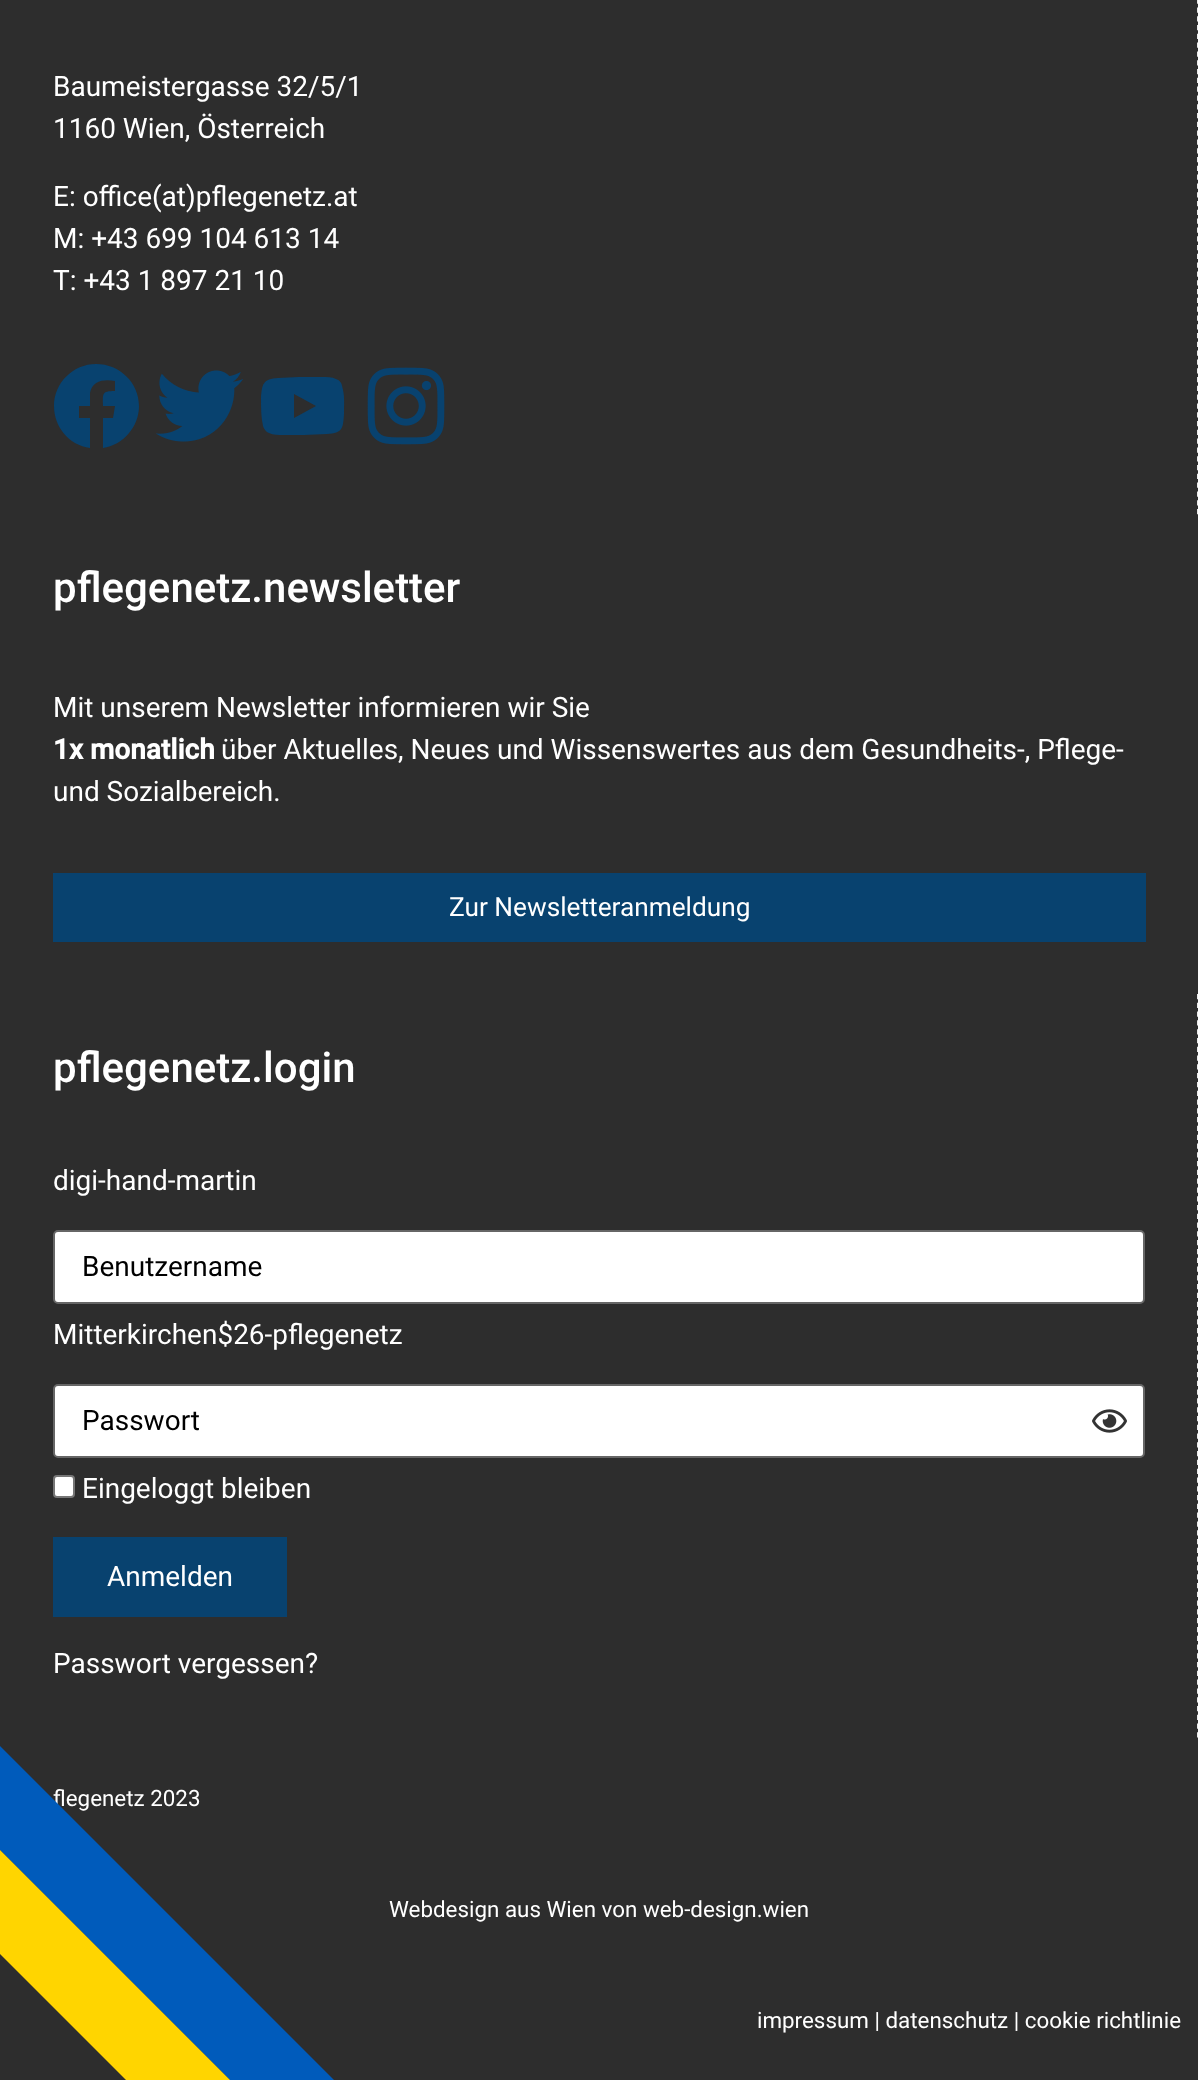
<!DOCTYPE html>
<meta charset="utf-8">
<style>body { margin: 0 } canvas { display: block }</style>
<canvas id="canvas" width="1198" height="2080"></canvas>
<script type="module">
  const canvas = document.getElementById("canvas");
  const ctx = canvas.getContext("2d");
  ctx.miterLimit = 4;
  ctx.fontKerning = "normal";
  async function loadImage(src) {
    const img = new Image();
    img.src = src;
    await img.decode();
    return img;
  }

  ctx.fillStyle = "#2d2d2d";
  ctx.fillRect(0, 0, 1198, 2080);
  ctx.beginPath();
  ctx.moveTo(1198, -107);
  ctx.lineTo(1198, 514.5);
  ctx.strokeStyle = "#ffffff";
  ctx.lineWidth = 1.8;
  ctx.setLineDash([5.25, 3.55]);
  ctx.stroke();
  ctx.font = "28px Roboto";
  ctx.fillStyle = "#ffffff";
  ctx.fillText("Baumeistergasse 32/5/1", 53, 96);
  ctx.fillText("1160 Wien, Österreich", 53, 138);
  ctx.fillText("E: office(at)pflegenetz.at", 53, 206);
  ctx.fillText("M: +43 699 104 613 14", 53, 248);
  ctx.fillText("T: +43 1 897 21 10", 53, 290);
  ctx.fillStyle = "#08426f";
  ctx.beginPath();
  ctx.moveTo(139, 406);
  ctx.bezierCurveTo(139, 383, 120, 364, 96, 364);
  ctx.bezierCurveTo(73, 364, 54, 383, 54, 406);
  ctx.bezierCurveTo(54, 427, 69, 445, 90, 448);
  ctx.lineTo(90, 418);
  ctx.lineTo(79, 418);
  ctx.lineTo(79, 406);
  ctx.lineTo(90, 406);
  ctx.lineTo(90, 393);
  ctx.bezierCurveTo(92, 380, 105, 379, 115, 381);
  ctx.lineTo(115, 391);
  ctx.bezierCurveTo(101, 391, 103, 394, 103, 406);
  ctx.lineTo(115, 406);
  ctx.lineTo(113, 418);
  ctx.lineTo(103, 418);
  ctx.lineTo(103, 448);
  ctx.bezierCurveTo(123, 445, 139, 427, 139, 406);
  ctx.closePath();
  ctx.fill();
  ctx.drawImage(await loadImage("img1.png"), 156, 370, 87, 72);
  ctx.beginPath();
  ctx.moveTo(342, 386);
  ctx.bezierCurveTo(342, 383, 339, 380, 336, 379);
  ctx.bezierCurveTo(332, 377, 327, 377, 322, 377);
  ctx.lineTo(299, 377);
  ctx.lineTo(278, 378);
  ctx.bezierCurveTo(263, 379, 262, 384, 261, 398);
  ctx.bezierCurveTo(261, 408, 261, 417, 263, 426);
  ctx.bezierCurveTo(264, 429, 266, 432, 269, 433);
  ctx.bezierCurveTo(273, 435, 279, 435, 283, 435);
  ctx.lineTo(304, 435);
  ctx.lineTo(327, 434);
  ctx.bezierCurveTo(343, 433, 343, 428, 344, 414);
  ctx.bezierCurveTo(344, 405, 345, 395, 342, 386);
  ctx.closePath();
  ctx.moveTo(294, 418);
  ctx.lineTo(294, 394);
  ctx.lineTo(316, 406);
  ctx.closePath();
  ctx.fill();
  ctx.drawImage(await loadImage("img2.png"), 367, 367, 78, 78);
  ctx.font = "500 42px Roboto";
  ctx.fillStyle = "#ffffff";
  ctx.fillText("pflegenetz.newsletter", 53, 602);
  ctx.font = "28px Roboto";
  ctx.fillText("Mit unserem Newsletter informieren wir Sie", 53, 717);
  ctx.font = "bold 28px Roboto";
  ctx.fillText("1x monatlich", 53, 759);
  ctx.font = "28px Roboto";
  ctx.fillText("über Aktuelles, Neues und Wissenswertes aus dem Gesundheits-, Pflege-", 221, 759);
  ctx.fillText("und Sozialbereich.", 53, 801);
  ctx.fillStyle = "#08426f";
  ctx.fillRect(53, 873, 1093, 69);
  ctx.font = "26.25px Roboto";
  ctx.fillStyle = "#ffffff";
  ctx.fillText("Zur Newsletteranmeldung", 449, 916);
  ctx.beginPath();
  ctx.moveTo(1198, 994);
  ctx.lineTo(1198, 1738);
  ctx.setLineDash([5.25, 3.54]);
  ctx.stroke();
  ctx.font = "500 42px Roboto";
  ctx.fillText("pflegenetz.login", 53, 1082);
  ctx.font = "28px Roboto";
  ctx.fillText("digi-hand-martin", 53, 1190);
  ctx.beginPath();
  ctx.roundRect(54, 1231, 1090, 72, 4);
  ctx.fill();
  ctx.strokeStyle = "#666666";
  ctx.lineWidth = 2;
  ctx.setLineDash([]);
  ctx.stroke();
  ctx.fillStyle = "#000000";
  ctx.fillText("Benutzername", 82, 1276);
  ctx.fillStyle = "#ffffff";
  ctx.fillText("Mitterkirchen$26-pflegenetz", 53, 1344);
  ctx.beginPath();
  ctx.roundRect(54, 1385, 1090, 72, 4);
  ctx.fill();
  ctx.stroke();
  ctx.fillStyle = "#000000";
  ctx.fillText("Passwort", 82, 1430);
  ctx.drawImage(await loadImage("img3.png"), 1092, 1409, 35, 24);
  ctx.fillStyle = "#ffffff";
  ctx.beginPath();
  ctx.roundRect(54, 1476, 20, 21, 3);
  ctx.fill();
  ctx.strokeStyle = "#767676";
  ctx.stroke();
  ctx.fillText("Eingeloggt bleiben", 82, 1498);
  ctx.fillStyle = "#08426f";
  ctx.fillRect(53, 1537, 234, 80);
  ctx.fillStyle = "#ffffff";
  ctx.fillText("Anmelden", 107, 1586);
  ctx.fillText("Passwort vergessen?", 53, 1673);
  ctx.font = "22.4px Roboto";
  ctx.fillText("flegenetz 2023", 53, 1806);
  ctx.fillText("Webdesign aus Wien von web-design.wien", 389, 1917);
  ctx.fillText("impressum | datenschutz | cookie richtlinie", 757, 2028);
  ctx.fillStyle = "#005bbb";
  ctx.beginPath();
  ctx.moveTo(-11, 1735);
  ctx.lineTo(360, 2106);
  ctx.lineTo(308, 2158);
  ctx.lineTo(-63, 1787);
  ctx.closePath();
  ctx.fill();
  ctx.fillStyle = "#ffd500";
  ctx.beginPath();
  ctx.moveTo(-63, 1787);
  ctx.lineTo(308, 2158);
  ctx.lineTo(256, 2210);
  ctx.lineTo(-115, 1839);
  ctx.closePath();
  ctx.fill();
</script>
